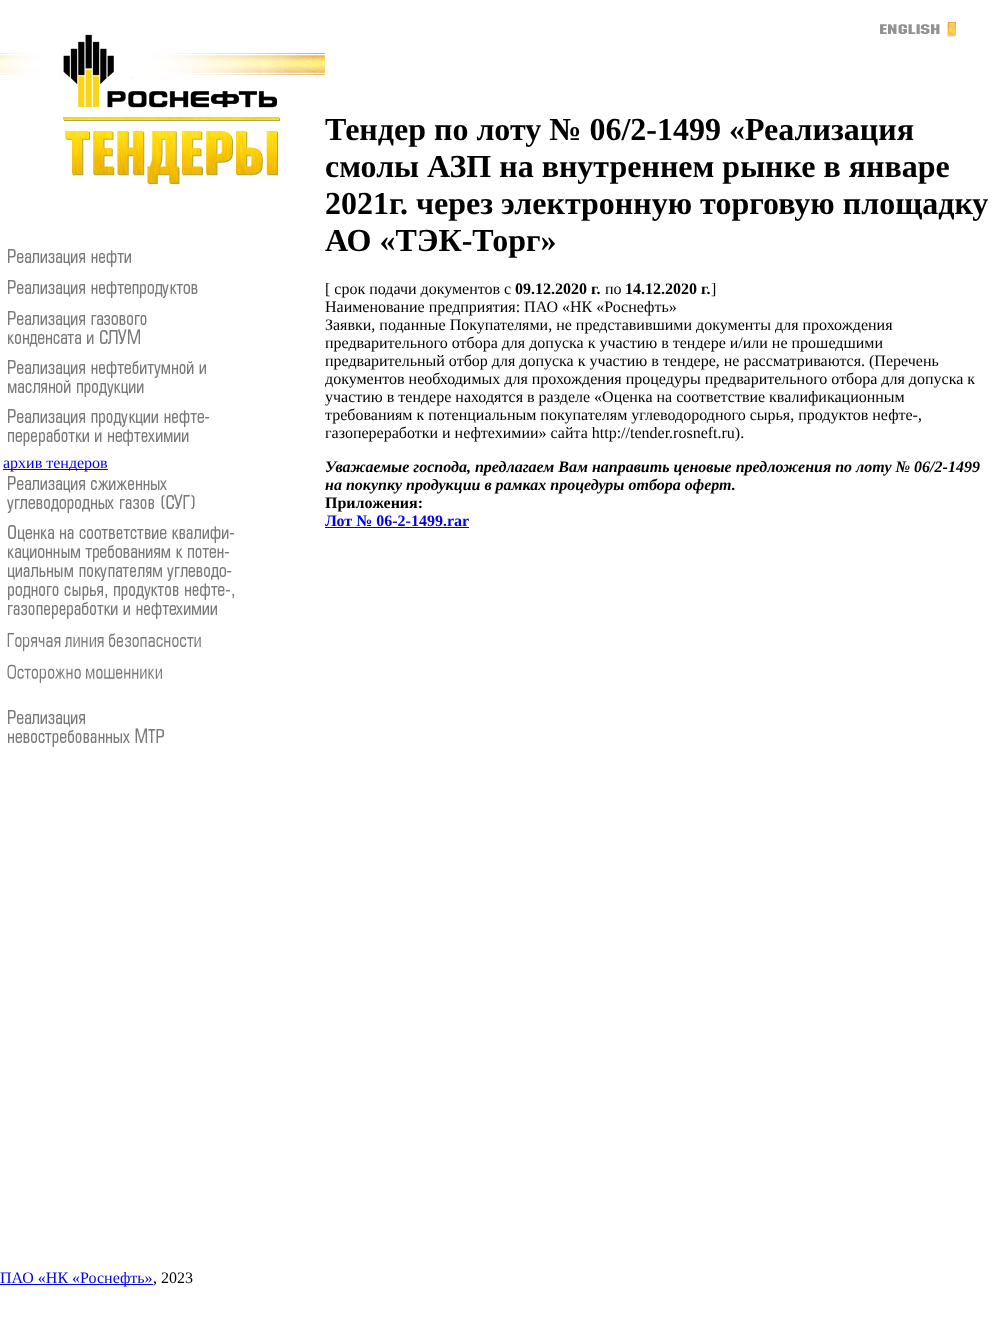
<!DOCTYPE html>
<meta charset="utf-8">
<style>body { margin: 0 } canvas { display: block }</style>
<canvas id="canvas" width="992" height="1339"></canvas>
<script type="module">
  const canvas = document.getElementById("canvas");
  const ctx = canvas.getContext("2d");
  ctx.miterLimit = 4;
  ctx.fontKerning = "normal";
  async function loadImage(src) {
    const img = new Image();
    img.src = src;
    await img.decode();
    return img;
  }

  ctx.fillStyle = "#ffffff";
  ctx.fillRect(0, 0, 992, 1339);
  ctx.drawImage(await loadImage("img1.png"), 880, 22, 76, 15);
  ctx.drawImage(await loadImage("img2.png"), 0, 34, 325, 74);
  ctx.drawImage(await loadImage("img3.png"), 63, 117, 217, 67);
  ctx.drawImage(await loadImage("img4.png"), 8, 249, 123, 18);
  ctx.drawImage(await loadImage("img5.png"), 8, 280, 190, 18);
  ctx.drawImage(await loadImage("img6.png"), 8, 311, 139, 36);
  ctx.drawImage(await loadImage("img7.png"), 8, 360, 198, 37);
  ctx.drawImage(await loadImage("img8.png"), 8, 409, 202, 37);
  ctx.fillStyle = "#0000ee";
  ctx.fillRect(3, 469, 105, 1);
  ctx.font = "16px Liberation Serif";
  ctx.fillText("архив тендеров", 3, 468);
  ctx.drawImage(await loadImage("img9.png"), 7, 476, 188, 37);
  ctx.drawImage(await loadImage("img10.png"), 8, 525, 226, 94);
  ctx.drawImage(await loadImage("img11.png"), 7, 633, 194, 19);
  ctx.drawImage(await loadImage("img12.png"), 7, 664, 155, 19);
  ctx.drawImage(await loadImage("img13.png"), 8, 710, 156, 37);
  ctx.font = "bold 32px Liberation Serif";
  ctx.fillStyle = "#000000";
  ctx.fillText("Тендер по лоту № 06/2-1499 «Реализация", 325, 140);
  ctx.fillText("смолы АЗП на внутреннем рынке в январе", 325, 177);
  ctx.fillText("2021г. через электронную торговую площадку", 325, 214);
  ctx.fillText("АО «ТЭК-Торг»", 325, 251);
  ctx.font = "16px Liberation Serif";
  ctx.fillText("[ срок подачи документов с", 325, 294);
  ctx.font = "bold 16px Liberation Serif";
  ctx.fillText("09.12.2020 г.", 515, 294);
  ctx.font = "16px Liberation Serif";
  ctx.fillText("по", 605, 294);
  ctx.font = "bold 16px Liberation Serif";
  ctx.fillText("14.12.2020 г.", 625, 294);
  ctx.font = "16px Liberation Serif";
  ctx.fillText("]", 711, 294);
  ctx.fillText("Наименование предприятия: ПАО «НК «Роснефть»", 325, 312);
  ctx.fillText("Заявки, поданные Покупателями, не представившими документы для прохождения", 325, 330);
  ctx.fillText("предварительного отбора для допуска к участию в тендере и/или не прошедшими", 325, 348);
  ctx.fillText("предварительный отбор для допуска к участию в тендере, не рассматриваются. (Перечень", 325, 366);
  ctx.fillText("документов необходимых для прохождения процедуры предварительного отбора для допуска к", 325, 384);
  ctx.fillText("участию в тендере находятся в разделе «Оценка на соответствие квалификационным", 325, 402);
  ctx.fillText("требованиям к потенциальным покупателям углеводородного сырья, продуктов нефте-,", 325, 420);
  ctx.fillText("газопереработки и нефтехимии» сайта http://tender.rosneft.ru).", 325, 438);
  ctx.font = "italic bold 16px Liberation Serif";
  ctx.fillText("Уважаемые господа, предлагаем Вам направить ценовые предложения по лоту № 06/2-1499", 325, 472);
  ctx.fillText("на покупку продукции в рамках процедуры отбора оферт.", 325, 490);
  ctx.font = "bold 16px Liberation Serif";
  ctx.fillText("Приложения:", 325, 508);
  ctx.fillStyle = "#0000ee";
  ctx.fillText("Лот № 06-2-1499.rar", 325, 526);
  ctx.fillRect(325, 527, 144, 1);
  ctx.fillRect(0, 1284, 153, 1);
  ctx.font = "16px Liberation Serif";
  ctx.fillText("ПАО «НК «Роснефть»", 0, 1283);
  ctx.fillStyle = "#000000";
  ctx.fillText(", 2023", 153, 1283);
</script>
